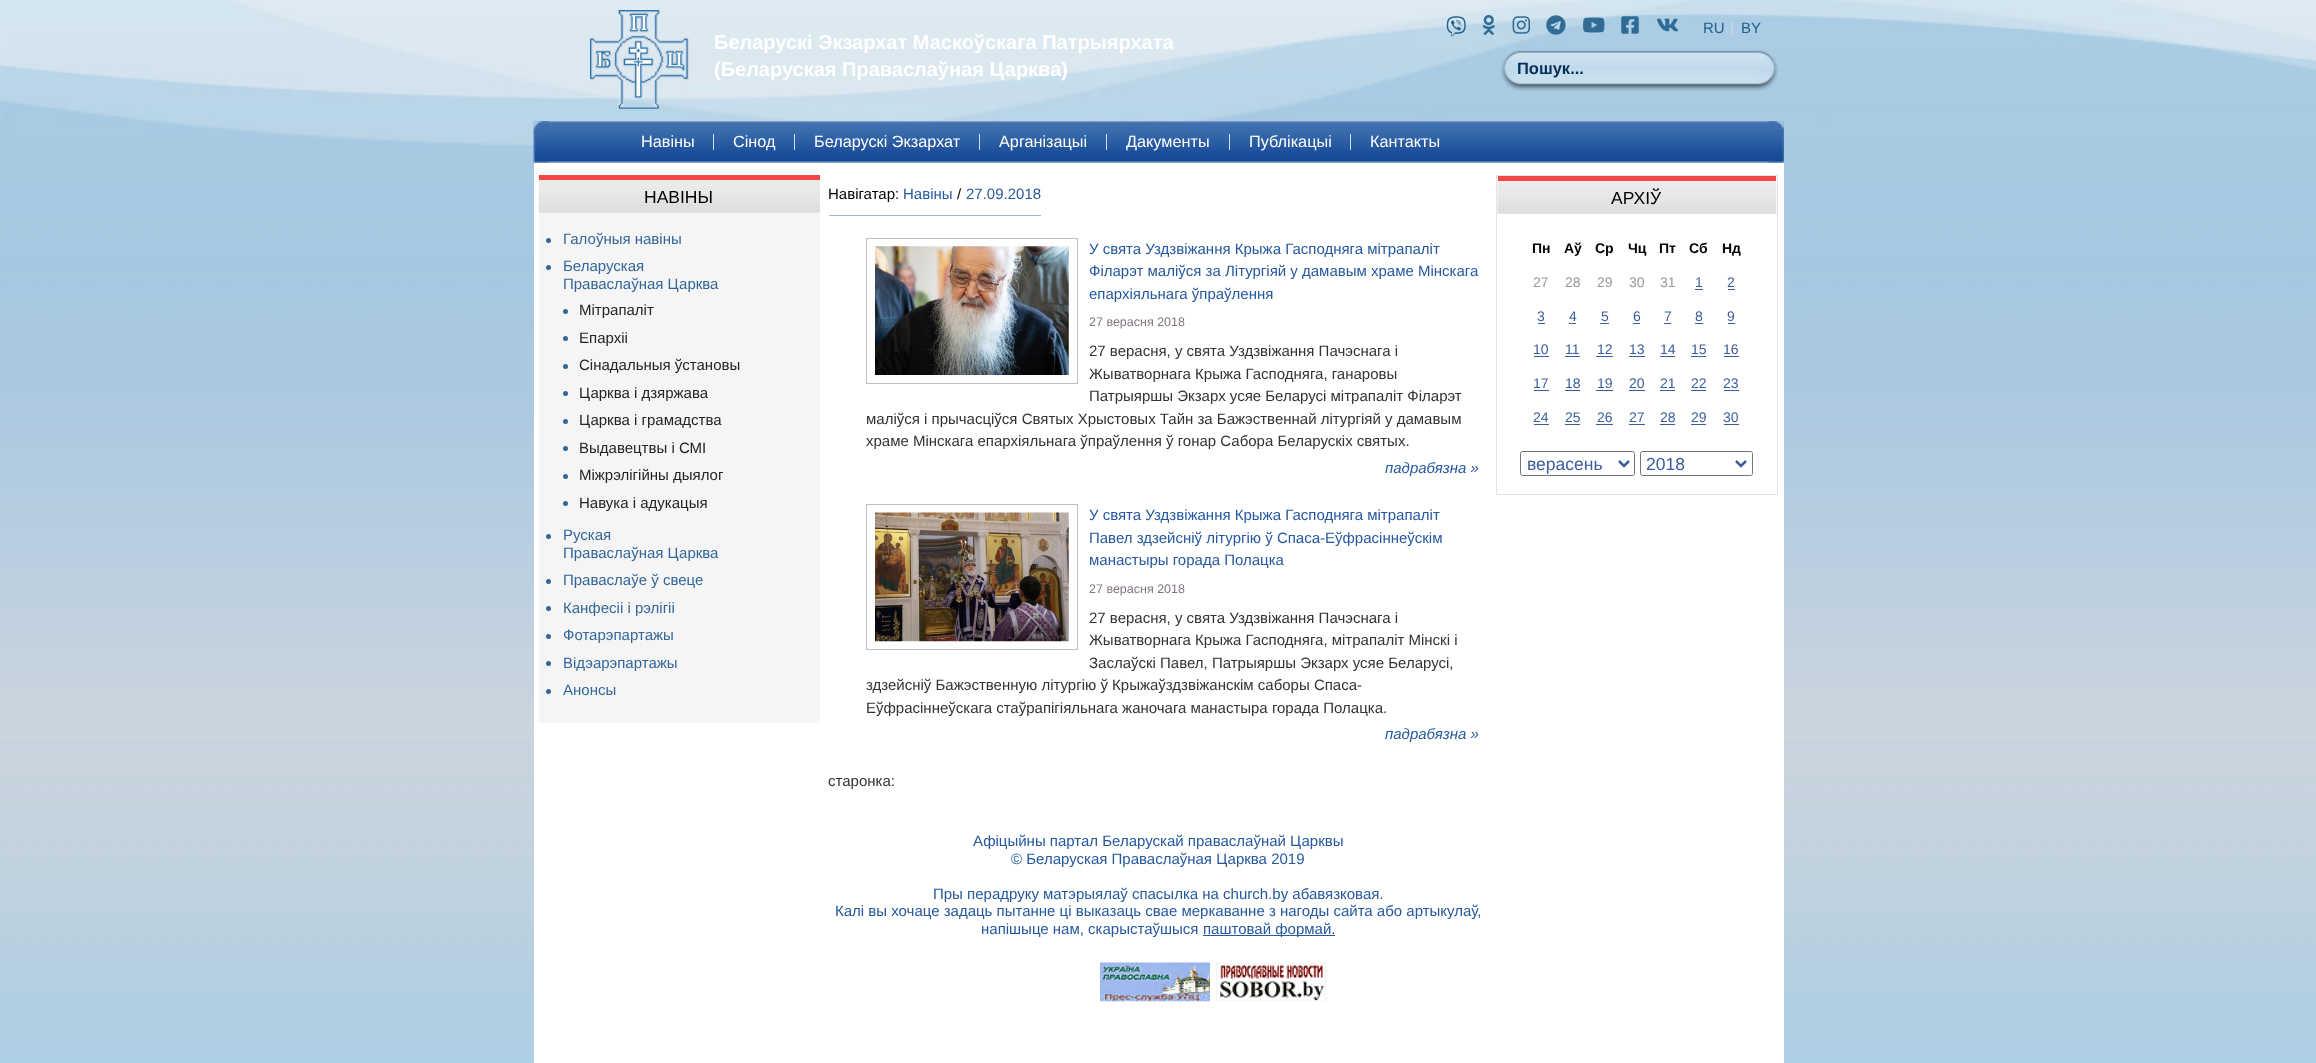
<!DOCTYPE html>
<meta charset="utf-8">
<style>body { margin: 0 } canvas { display: block }</style>
<canvas id="canvas" width="2316" height="1063"></canvas>
<script type="module">
  const canvas = document.getElementById("canvas");
  const ctx = canvas.getContext("2d");
  ctx.miterLimit = 4;
  ctx.fontKerning = "normal";
  async function loadImage(src) {
    const img = new Image();
    img.src = src;
    await img.decode();
    return img;
  }

  ctx.fillStyle = "#d5d4d5";
  ctx.fillRect(0, 0, 2316, 1063);
  ctx.drawImage(await loadImage("img1.png"), 0, 147, 2316, 780);
  ctx.drawImage(await loadImage("img2.png"), 0, 0, 2316, 148);
  ctx.drawImage(await loadImage("img3.png"), 1446, 16, 20, 21);
  ctx.drawImage(await loadImage("img4.png"), 1482, 15, 13, 20);
  ctx.drawImage(await loadImage("img5.png"), 1512, 16, 19, 18);
  ctx.drawImage(await loadImage("img6.png"), 1546, 15, 20, 20);
  ctx.drawImage(await loadImage("img7.png"), 1583, 17, 22, 16);
  ctx.drawImage(await loadImage("img8.png"), 1621, 16, 18, 18);
  ctx.drawImage(await loadImage("img9.png"), 1657, 18, 21, 14);
  ctx.font = "15px Liberation Sans";
  ctx.fillStyle = "#21608c";
  ctx.fillText("RU", 1703, 33);
  ctx.fillStyle = "#d5d5d5";
  ctx.fillText("|", 1730, 33);
  ctx.fillStyle = "#21608c";
  ctx.fillText("BY", 1741, 33);
  ctx.drawImage(await loadImage("img10.png"), 590, 10, 99, 99);
  ctx.font = "bold 20px Liberation Sans";
  ctx.fillStyle = "#ffffff";
  ctx.fillText("Беларускі Экзархат Маскоўскага Патрыярхата", 714, 49);
  ctx.fillText("(Беларуская Праваслаўная Царква)", 714, 76);
  ctx.drawImage(await loadImage("img11.png"), 1501, 50, 277, 41);
  ctx.font = "bold 16.5px Liberation Sans";
  ctx.fillStyle = "#032f57";
  ctx.fillText("Пошук...", 1517, 74);
  ctx.drawImage(await loadImage("img12.png"), 533, 121, 1251, 42);
  ctx.drawImage(await loadImage("img13.png"), 533, 121, 16, 42);
  ctx.fillStyle = "#cfdeff";
  ctx.fillRect(713, 134, 1, 16);
  ctx.font = "16.25px Liberation Sans";
  ctx.fillStyle = "#ffffff";
  ctx.fillText("Навіны", 641, 147);
  ctx.fillStyle = "#cfdeff";
  ctx.fillRect(794, 134, 1, 16);
  ctx.fillStyle = "#ffffff";
  ctx.fillText("Сінод", 733, 147);
  ctx.fillStyle = "#cfdeff";
  ctx.fillRect(979, 134, 1, 16);
  ctx.fillStyle = "#ffffff";
  ctx.fillText("Беларускі Экзархат", 814, 147);
  ctx.fillStyle = "#cfdeff";
  ctx.fillRect(1106, 134, 1, 16);
  ctx.fillStyle = "#ffffff";
  ctx.fillText("Арганізацыі", 999, 147);
  ctx.fillStyle = "#cfdeff";
  ctx.fillRect(1229, 134, 1, 16);
  ctx.fillStyle = "#ffffff";
  ctx.fillText("Дакументы", 1126, 147);
  ctx.fillStyle = "#cfdeff";
  ctx.fillRect(1350, 134, 1, 16);
  ctx.fillStyle = "#ffffff";
  ctx.fillText("Публікацыі", 1249, 147);
  ctx.fillText("Кантакты", 1370, 147);
  ctx.drawImage(await loadImage("img14.png"), 1768, 121, 16, 42);
  ctx.drawImage(await loadImage("img21.png"), 0, 740, 2316, 323);
  ctx.fillRect(534, 163, 1250, 900);
  ctx.fillStyle = "#f5f5f5";
  ctx.fillRect(539, 212, 281, 511);
  ctx.fillStyle = "#f44642";
  ctx.fillRect(539, 175, 281, 5);
  ctx.drawImage(await loadImage("img15.png"), 538, 180, 282, 33);
  ctx.font = "17.5px Liberation Sans";
  ctx.fillStyle = "#000000";
  ctx.fillText("НАВІНЫ", 644, 203);
  ctx.fillStyle = "#336699";
  ctx.beginPath();
  ctx.arc(548.5, 240.5, 2.5, 0, Math.PI * 2);
  ctx.fill();
  ctx.font = "15px Liberation Sans";
  ctx.fillText("Галоўныя навіны", 563, 244);
  ctx.beginPath();
  ctx.arc(548.5, 267.5, 2.5, 0, Math.PI * 2);
  ctx.fill();
  ctx.fillText("Беларуская", 563, 271);
  ctx.fillText("Праваслаўная Царква", 563, 289);
  ctx.beginPath();
  ctx.arc(565.5, 311.5, 2.5, 0, Math.PI * 2);
  ctx.fill();
  ctx.fillStyle = "#232424";
  ctx.fillText("Мітрапаліт", 579, 315);
  ctx.fillStyle = "#336699";
  ctx.beginPath();
  ctx.arc(565.5, 338.5, 2.5, 0, Math.PI * 2);
  ctx.fill();
  ctx.fillStyle = "#232424";
  ctx.fillText("Епархіі", 579, 343);
  ctx.fillStyle = "#336699";
  ctx.beginPath();
  ctx.arc(565.5, 366.5, 2.5, 0, Math.PI * 2);
  ctx.fill();
  ctx.fillStyle = "#232424";
  ctx.fillText("Сінадальныя ўстановы", 579, 370);
  ctx.fillStyle = "#336699";
  ctx.beginPath();
  ctx.arc(565.5, 393.5, 2.5, 0, Math.PI * 2);
  ctx.fill();
  ctx.fillStyle = "#232424";
  ctx.fillText("Царква і дзяржава", 579, 398);
  ctx.fillStyle = "#336699";
  ctx.beginPath();
  ctx.arc(565.5, 421.5, 2.5, 0, Math.PI * 2);
  ctx.fill();
  ctx.fillStyle = "#232424";
  ctx.fillText("Царква і грамадства", 579, 425);
  ctx.fillStyle = "#336699";
  ctx.beginPath();
  ctx.arc(565.5, 448.5, 2.5, 0, Math.PI * 2);
  ctx.fill();
  ctx.fillStyle = "#232424";
  ctx.fillText("Выдавецтвы і СМІ", 579, 453);
  ctx.fillStyle = "#336699";
  ctx.beginPath();
  ctx.arc(565.5, 476.5, 2.5, 0, Math.PI * 2);
  ctx.fill();
  ctx.fillStyle = "#232424";
  ctx.fillText("Міжрэлігійны дыялог", 579, 480);
  ctx.fillStyle = "#336699";
  ctx.beginPath();
  ctx.arc(565.5, 503.5, 2.5, 0, Math.PI * 2);
  ctx.fill();
  ctx.fillStyle = "#232424";
  ctx.fillText("Навука і адукацыя", 579, 508);
  ctx.fillStyle = "#336699";
  ctx.beginPath();
  ctx.arc(548.5, 536.5, 2.5, 0, Math.PI * 2);
  ctx.fill();
  ctx.fillText("Руская", 563, 540);
  ctx.fillText("Праваслаўная Царква", 563, 558);
  ctx.beginPath();
  ctx.arc(548.5, 581.5, 2.5, 0, Math.PI * 2);
  ctx.fill();
  ctx.fillText("Праваслаўе ў свеце", 563, 585);
  ctx.beginPath();
  ctx.arc(548.5, 608.5, 2.5, 0, Math.PI * 2);
  ctx.fill();
  ctx.fillText("Канфесіі і рэлігіі", 563, 613);
  ctx.beginPath();
  ctx.arc(548.5, 636.5, 2.5, 0, Math.PI * 2);
  ctx.fill();
  ctx.fillText("Фотарэпартажы", 563, 640);
  ctx.beginPath();
  ctx.arc(548.5, 663.5, 2.5, 0, Math.PI * 2);
  ctx.fill();
  ctx.fillText("Відэарэпартажы", 563, 668);
  ctx.beginPath();
  ctx.arc(548.5, 691.5, 2.5, 0, Math.PI * 2);
  ctx.fill();
  ctx.fillText("Анонсы", 563, 695);
  ctx.fillStyle = "#000000";
  ctx.fillText("Навігатар:", 828, 199);
  ctx.fillStyle = "#9bb7cb";
  ctx.fillRect(829, 215, 212, 1);
  ctx.fillStyle = "#25589f";
  ctx.fillText("Навіны", 903, 199);
  ctx.fillStyle = "#000000";
  ctx.fillText("/", 957, 199);
  ctx.fillStyle = "#25589f";
  ctx.fillText("27.09.2018", 966, 199);
  ctx.strokeStyle = "#c0c0c0";
  ctx.strokeRect(866.5, 238.5, 211, 145);
  ctx.drawImage(await loadImage("img16.png"), 875, 246, 194, 129);
  ctx.fillText("У свята Уздзвіжання Крыжа Гасподняга мітрапаліт", 1089, 254);
  ctx.fillText("Філарэт маліўся за Літургіяй у дамавым храме Мінскага", 1089, 276);
  ctx.fillText("епархіяльнага ўпраўлення", 1089, 299);
  ctx.font = "12.5px Liberation Sans";
  ctx.fillStyle = "#807580";
  ctx.fillText("27 верасня 2018", 1089, 326);
  ctx.font = "15px Liberation Sans";
  ctx.fillStyle = "#333333";
  ctx.fillText("27 верасня, у свята Уздзвіжання Пачэснага і", 1089, 356);
  ctx.fillText("Жыватворнага Крыжа Гасподняга, ганаровы", 1089, 379);
  ctx.fillText("Патрыяршы Экзарх усяе Беларусі мітрапаліт Філарэт", 1089, 401);
  ctx.fillText("маліўся і прычасціўся Святых Хрыстовых Тайн за Бажэственнай літургіяй у дамавым", 866, 424);
  ctx.fillText("храме Мінскага епархіяльнага ўпраўлення ў гонар Сабора Беларускіх святых.", 866, 446);
  ctx.font = "italic 15px Liberation Sans";
  ctx.fillStyle = "#25589f";
  ctx.fillText("падрабязна »", 1385, 473);
  ctx.strokeRect(866.5, 504.5, 211, 145);
  ctx.drawImage(await loadImage("img17.png"), 875, 512, 194, 130);
  ctx.font = "15px Liberation Sans";
  ctx.fillText("У свята Уздзвіжання Крыжа Гасподняга мітрапаліт", 1089, 520);
  ctx.fillText("Павел здзейсніў літургію ў Спаса-Еўфрасіннеўскім", 1089, 543);
  ctx.fillText("манастыры горада Полацка", 1089, 565);
  ctx.font = "12.5px Liberation Sans";
  ctx.fillStyle = "#807580";
  ctx.fillText("27 верасня 2018", 1089, 593);
  ctx.font = "15px Liberation Sans";
  ctx.fillStyle = "#333333";
  ctx.fillText("27 верасня, у свята Уздзвіжання Пачэснага і", 1089, 623);
  ctx.fillText("Жыватворнага Крыжа Гасподняга, мітрапаліт Мінскі і", 1089, 645);
  ctx.fillText("Заслаўскі Павел, Патрыяршы Экзарх усяе Беларусі,", 1089, 668);
  ctx.fillText("здзейсніў Бажэственную літургію ў Крыжаўздзвіжанскім саборы Спаса-", 866, 690);
  ctx.fillText("Еўфрасіннеўскага стаўрапігіяльнага жаночага манастыра горада Полацка.", 866, 713);
  ctx.font = "italic 15px Liberation Sans";
  ctx.fillStyle = "#25589f";
  ctx.fillText("падрабязна »", 1385, 739);
  ctx.font = "15px Liberation Sans";
  ctx.fillStyle = "#333333";
  ctx.fillText("старонка:", 828, 786);
  ctx.strokeStyle = "#e4e4e4";
  ctx.strokeRect(1496.5, 175.5, 281, 319);
  ctx.drawImage(await loadImage("img18.png"), 1497, 181, 280, 33);
  ctx.fillStyle = "#f44642";
  ctx.fillRect(1498, 176, 278, 5);
  ctx.font = "17.5px Liberation Sans";
  ctx.fillStyle = "#000000";
  ctx.fillText("АРХІЎ", 1611, 204);
  ctx.font = "bold 14px Liberation Sans";
  ctx.fillText("Пн", 1532, 253);
  ctx.fillText("Аў", 1564, 253);
  ctx.fillText("Ср", 1595, 253);
  ctx.fillText("Чц", 1628, 253);
  ctx.fillText("Пт", 1659, 253);
  ctx.fillText("Сб", 1689, 253);
  ctx.fillText("Нд", 1722, 253);
  ctx.font = "14px Liberation Sans";
  ctx.fillStyle = "#999999";
  ctx.fillText("27", 1533, 287);
  ctx.fillText("28", 1565, 287);
  ctx.fillText("29", 1597, 287);
  ctx.fillText("30", 1629, 287);
  ctx.fillText("31", 1660, 287);
  ctx.fillStyle = "#3b5d9d";
  ctx.fillText("1", 1695, 287);
  ctx.fillRect(1695, 289, 8, 1);
  ctx.fillText("2", 1727, 287);
  ctx.fillRect(1728, 289, 7, 1);
  ctx.fillText("3", 1537, 321);
  ctx.fillRect(1538, 323, 7, 1);
  ctx.fillText("4", 1569, 321);
  ctx.fillRect(1569, 323, 7, 1);
  ctx.fillText("5", 1601, 321);
  ctx.fillRect(1600, 323, 9, 1);
  ctx.fillText("6", 1633, 321);
  ctx.fillRect(1633, 323, 7, 1);
  ctx.fillText("7", 1664, 321);
  ctx.fillRect(1664, 323, 7, 1);
  ctx.fillText("8", 1695, 321);
  ctx.fillRect(1695, 323, 8, 1);
  ctx.fillText("9", 1727, 321);
  ctx.fillRect(1728, 323, 7, 1);
  ctx.fillText("10", 1533, 354);
  ctx.fillRect(1534, 356, 15, 1);
  ctx.fillText("11", 1565, 354);
  ctx.fillRect(1565, 356, 15, 1);
  ctx.fillText("12", 1597, 354);
  ctx.fillRect(1596, 356, 17, 1);
  ctx.fillText("13", 1629, 354);
  ctx.fillRect(1629, 356, 16, 1);
  ctx.fillText("14", 1660, 354);
  ctx.fillRect(1660, 356, 15, 1);
  ctx.fillText("15", 1691, 354);
  ctx.fillRect(1691, 356, 15, 1);
  ctx.fillText("16", 1723, 354);
  ctx.fillRect(1724, 356, 15, 1);
  ctx.fillText("17", 1533, 388);
  ctx.fillRect(1534, 390, 15, 1);
  ctx.fillText("18", 1565, 388);
  ctx.fillRect(1565, 390, 15, 1);
  ctx.fillText("19", 1597, 388);
  ctx.fillRect(1596, 390, 17, 1);
  ctx.fillText("20", 1629, 388);
  ctx.fillRect(1629, 390, 16, 1);
  ctx.fillText("21", 1660, 388);
  ctx.fillRect(1660, 390, 15, 1);
  ctx.fillText("22", 1691, 388);
  ctx.fillRect(1691, 390, 15, 1);
  ctx.fillText("23", 1723, 388);
  ctx.fillRect(1724, 390, 15, 1);
  ctx.fillText("24", 1533, 422);
  ctx.fillRect(1534, 424, 15, 1);
  ctx.fillText("25", 1565, 422);
  ctx.fillRect(1565, 424, 15, 1);
  ctx.fillText("26", 1597, 422);
  ctx.fillRect(1596, 424, 17, 1);
  ctx.fillText("27", 1629, 422);
  ctx.fillRect(1629, 424, 16, 1);
  ctx.fillText("28", 1660, 422);
  ctx.fillRect(1660, 424, 15, 1);
  ctx.fillText("29", 1691, 422);
  ctx.fillRect(1691, 424, 15, 1);
  ctx.fillText("30", 1723, 422);
  ctx.fillRect(1724, 424, 15, 1);
  ctx.beginPath();
  ctx.roundRect(1520.5, 451.5, 114, 24, 2);
  ctx.strokeStyle = "#767676";
  ctx.stroke();
  ctx.beginPath();
  ctx.moveTo(1619, 461);
  ctx.lineTo(1624, 466);
  ctx.lineTo(1629, 461);
  ctx.strokeStyle = "#3b5d9d";
  ctx.lineWidth = 2.5;
  ctx.stroke();
  ctx.font = "17.5px Liberation Sans";
  ctx.fillText("верасень", 1527, 470);
  ctx.beginPath();
  ctx.roundRect(1640.5, 451.5, 112, 24, 2);
  ctx.strokeStyle = "#767676";
  ctx.lineWidth = 1;
  ctx.stroke();
  ctx.beginPath();
  ctx.moveTo(1736, 461);
  ctx.lineTo(1741, 466);
  ctx.lineTo(1746, 461);
  ctx.strokeStyle = "#3b5d9d";
  ctx.lineWidth = 2.5;
  ctx.stroke();
  ctx.fillText("2018", 1646, 470);
  ctx.font = "15px Liberation Sans";
  ctx.fillStyle = "#25589f";
  ctx.fillText("Афіцыйны партал Беларускай праваслаўнай Царквы", 973, 846);
  ctx.fillText("© Беларуская Праваслаўная Царква 2019", 1011, 864);
  ctx.fillText("Пры перадруку матэрыялаў спасылка на church.by абавязковая.", 933, 899);
  ctx.fillText("Калі вы хочаце задаць пытанне ці выказаць свае меркаванне з нагоды сайта або артыкулаў,", 835, 916);
  ctx.fillText("напішыце нам, скарыстаўшыся", 981, 934);
  ctx.fillRect(1203, 935, 132, 1);
  ctx.fillText("паштовай формай.", 1203, 934);
  ctx.drawImage(await loadImage("img19.png"), 1100, 962, 110, 40);
  ctx.drawImage(await loadImage("img20.png"), 1216, 962, 111, 40);
</script>
